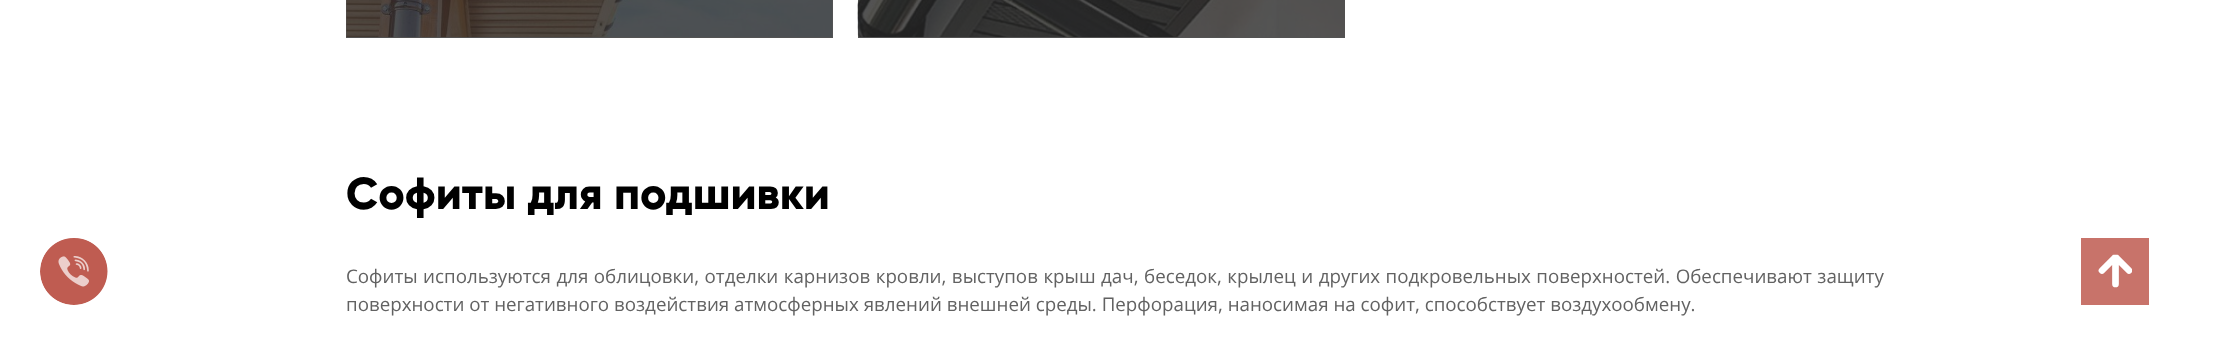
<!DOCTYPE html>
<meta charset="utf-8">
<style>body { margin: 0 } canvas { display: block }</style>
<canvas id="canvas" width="2228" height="345"></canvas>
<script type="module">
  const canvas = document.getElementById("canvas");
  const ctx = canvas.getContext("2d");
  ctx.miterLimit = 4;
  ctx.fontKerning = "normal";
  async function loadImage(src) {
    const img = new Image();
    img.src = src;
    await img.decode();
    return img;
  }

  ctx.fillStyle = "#ffffff";
  ctx.fillRect(0, 0, 2228, 345);
  ctx.fillStyle = "#545454";
  ctx.fillRect(858, 37, 487, 1);
  ctx.fillRect(346, 0, 487, 38);
  ctx.drawImage(await loadImage("img1.png"), 40, 238, 68, 67);
  ctx.drawImage(await loadImage("img2.png"), 346, 0, 487, 38);
  ctx.drawImage(await loadImage("img3.png"), 857, 0, 488, 38);
  ctx.font = "800 45px Gilroy";
  ctx.fillStyle = "#000000";
  ctx.fillText("Софиты для подшивки", 346, 209);
  ctx.wordSpacing = "0.6px";
  ctx.font = "18.75px Open Sans";
  ctx.fillStyle = "#626262";
  ctx.fillText("Софиты используются для облицовки, отделки карнизов кровли, выступов крыш дач, беседок, крылец и других подкровельных поверхностей. Обеспечивают защиту", 346, 283);
  ctx.wordSpacing = "0px";
  ctx.fillText("поверхности от негативного воздействия атмосферных явлений внешней среды. Перфорация, наносимая на софит, способствует воздухообмену.", 346, 311);
  ctx.fillStyle = "#c8736a";
  ctx.fillRect(2081, 238, 68, 67);
  ctx.save();
  ctx.beginPath();
  ctx.moveTo(2098, 288);
  ctx.lineTo(2098, 254.5);
  ctx.lineTo(2132, 254.5);
  ctx.lineTo(2132, 288);
  ctx.closePath();
  ctx.clip();
  ctx.beginPath();
  ctx.moveTo(2098, 288);
  ctx.lineTo(2098, 254.5);
  ctx.lineTo(2132, 254.5);
  ctx.lineTo(2132, 288);
  ctx.closePath();
  ctx.clip();
  ctx.beginPath();
  ctx.moveTo(2129, 270.5);
  ctx.lineTo(2115.5, 257);
  ctx.lineTo(2102, 270.5);
  ctx.moveTo(2115.5, 284);
  ctx.lineTo(2115.5, 257);
  ctx.strokeStyle = "#ffffff";
  ctx.lineWidth = 6.7;
  ctx.lineCap = "round";
  ctx.lineJoin = "round";
  ctx.stroke();
  ctx.restore();
</script>
